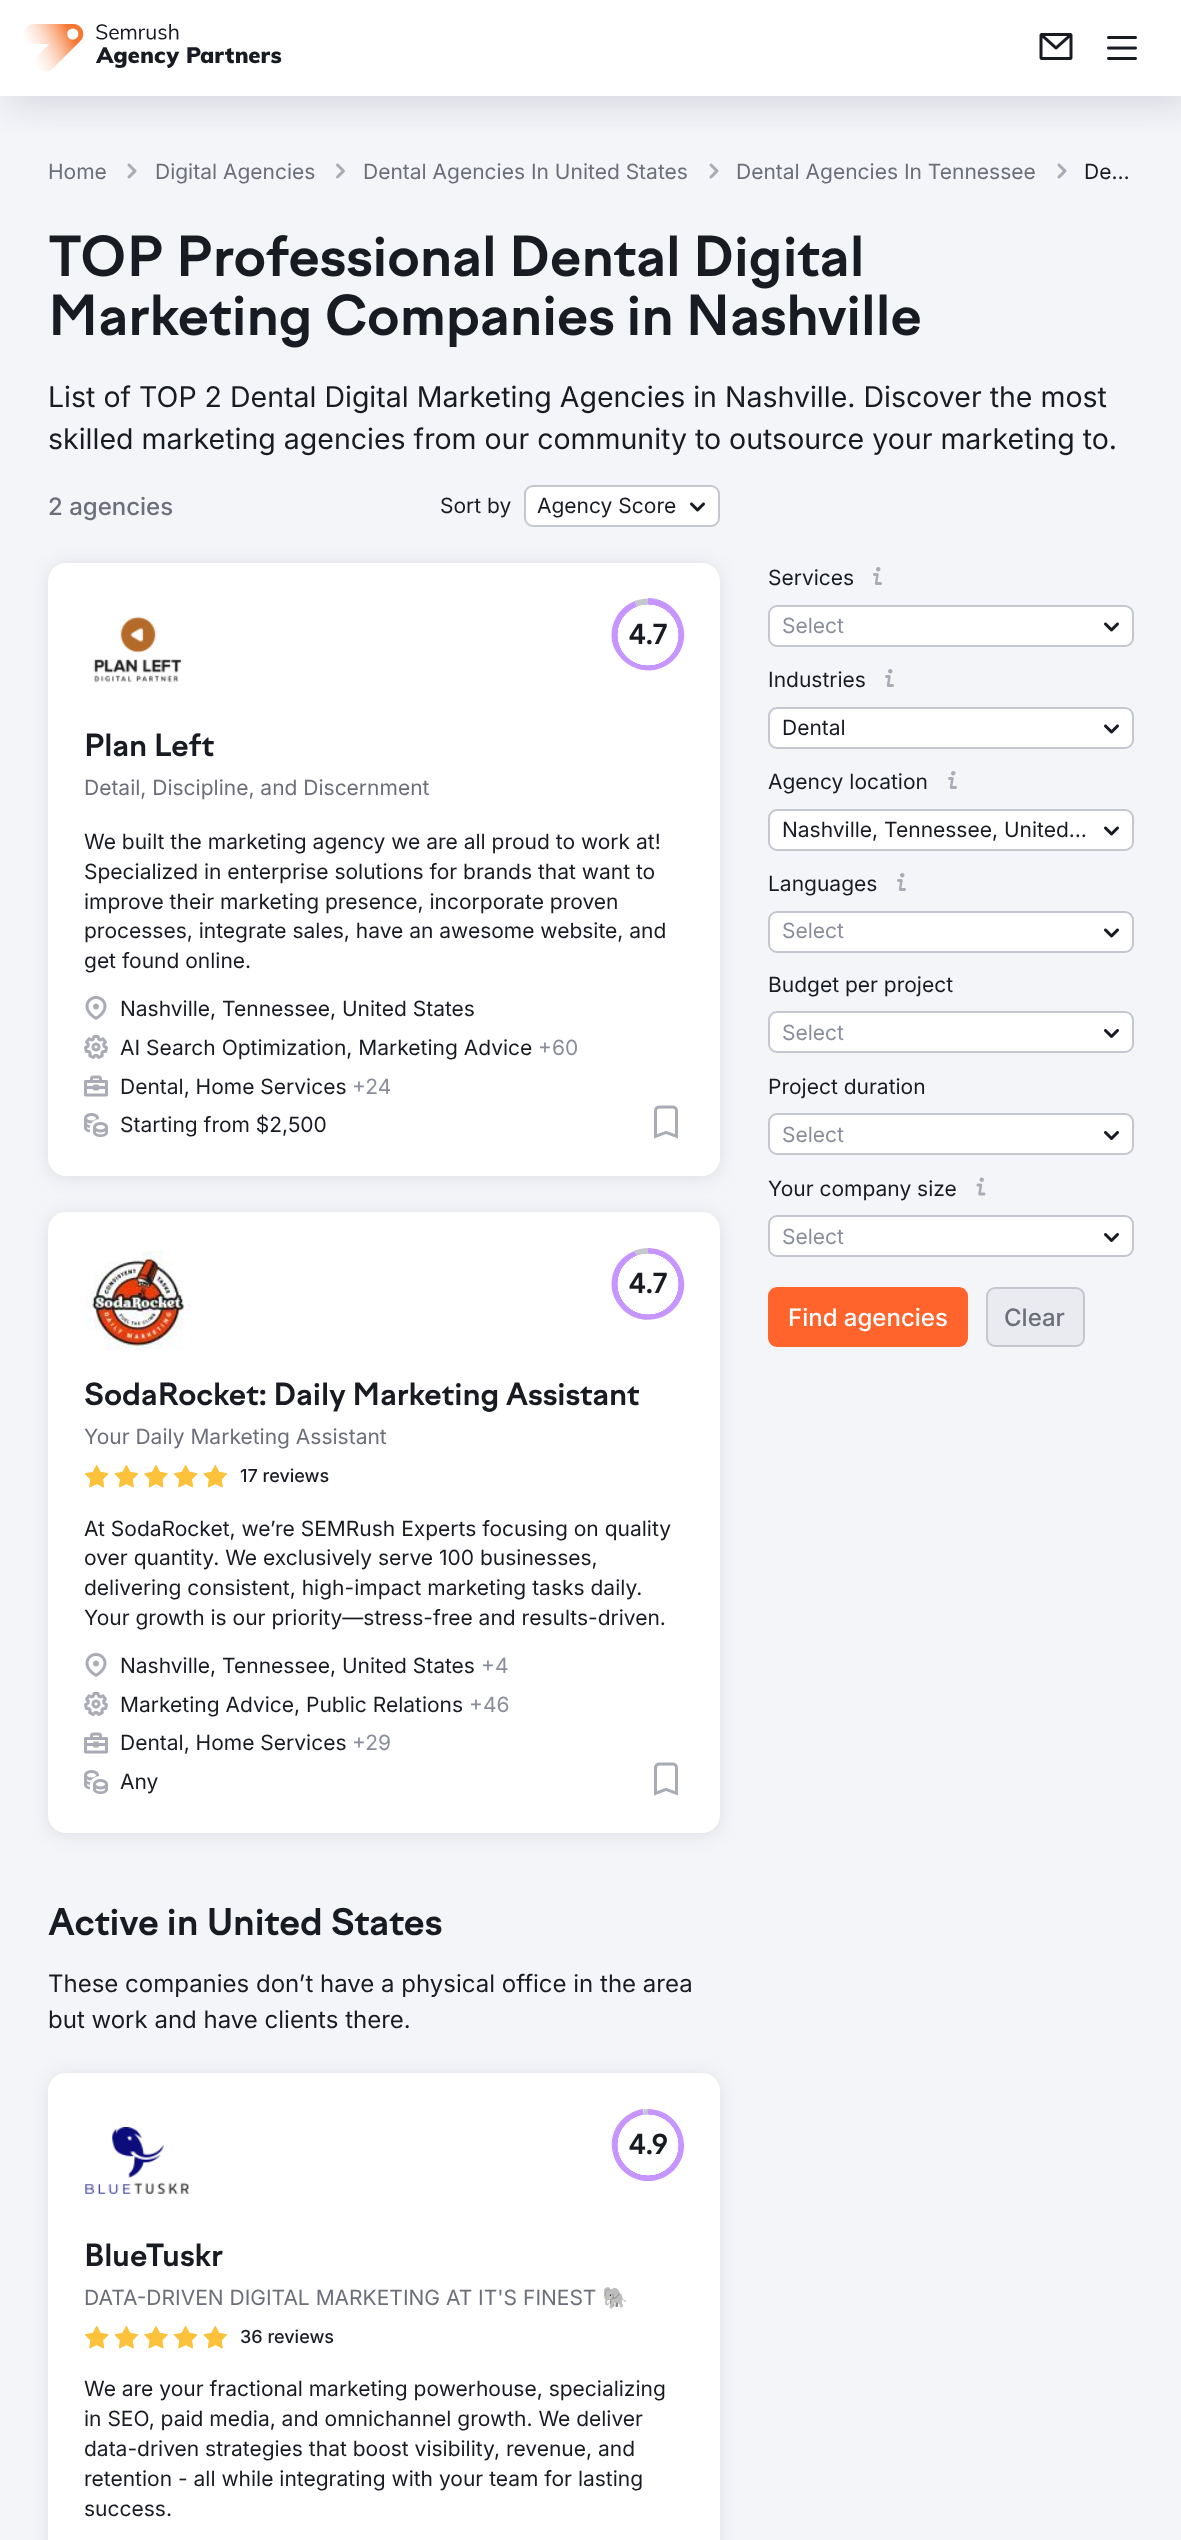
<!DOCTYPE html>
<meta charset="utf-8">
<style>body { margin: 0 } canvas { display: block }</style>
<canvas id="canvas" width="1181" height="2540"></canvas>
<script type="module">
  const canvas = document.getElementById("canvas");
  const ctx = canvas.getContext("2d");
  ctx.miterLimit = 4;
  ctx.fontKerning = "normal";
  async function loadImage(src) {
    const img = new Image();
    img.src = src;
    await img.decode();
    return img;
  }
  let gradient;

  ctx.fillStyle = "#ffffff";
  ctx.fillRect(0, 0, 1181, 2540);
  ctx.fillStyle = "#f4f5f9";
  ctx.fillRect(0, 96, 1181, 2444);
  ctx.save();
  ctx.beginPath();
  ctx.rect(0, 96, 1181, 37);
  ctx.clip();
  ctx.fillStyle = "rgba(137, 141, 154, 0.3)";
  ctx.filter = "blur(19px)";
  ctx.beginPath();
  ctx.rect(8, 8, 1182, 96);
  ctx.fill();
  ctx.filter = "none";
  ctx.restore();
  ctx.drawImage(await loadImage("img1.png"), 24, 24, 258, 48);
  ctx.drawImage(await loadImage("img2.png"), 1039, 33, 34, 27);
  ctx.drawImage(await loadImage("img3.png"), 1107, 36, 30, 24);
  ctx.font = "21px Inter";
  ctx.fillStyle = "#6c6e79";
  ctx.fillText("Home", 48, 179);
  ctx.drawImage(await loadImage("img4.png"), 127, 163, 10, 16);
  ctx.fillText("Digital Agencies", 155, 179);
  ctx.drawImage(await loadImage("img5.png"), 336, 163, 9, 16);
  ctx.fillText("Dental Agencies In United States", 363, 179);
  ctx.drawImage(await loadImage("img4.png"), 709, 163, 10, 16);
  ctx.fillText("Dental Agencies In Tennessee", 736, 179);
  ctx.drawImage(await loadImage("img4.png"), 1057, 163, 10, 16);
  ctx.fillStyle = "#191b23";
  ctx.fillText("De…", 1084, 179);
  ctx.font = "bold 54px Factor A";
  ctx.fillText("TOP Professional Dental Digital", 48, 276);
  ctx.fillText("Marketing Companies in Nashville", 48, 335);
  ctx.font = "28.5px Inter";
  ctx.fillText("List of TOP 2 Dental Digital Marketing Agencies in Nashville. Discover the most", 48, 407);
  ctx.fillText("skilled marketing agencies from our community to outsource your marketing to.", 48, 449);
  ctx.font = "500 24px Inter";
  ctx.fillStyle = "#6c6e79";
  ctx.fillText("2 agencies", 48, 515);
  ctx.font = "21px Inter";
  ctx.fillStyle = "#191b23";
  ctx.fillText("Sort by", 440, 513);
  ctx.fillStyle = "#ffffff";
  ctx.beginPath();
  ctx.roundRect(525, 486, 194, 40, 8);
  ctx.fill();
  ctx.strokeStyle = "#c4c7cf";
  ctx.lineWidth = 2;
  ctx.stroke();
  ctx.fillStyle = "#191b23";
  ctx.fillText("Agency Score", 537, 513);
  ctx.drawImage(await loadImage("img6.png"), 690, 502, 15, 10);
  ctx.fillStyle = "rgba(25, 27, 35, 0.1)";
  ctx.filter = "blur(9px)";
  ctx.beginPath();
  ctx.roundRect(48, 564, 672, 614, 18);
  ctx.fill();
  ctx.filter = "none";
  ctx.fillStyle = "#ffffff";
  ctx.beginPath();
  ctx.roundRect(48, 563, 672, 613, 18);
  ctx.fill();
  ctx.drawImage(await loadImage("img7.png"), 93, 616, 89, 67);
  ctx.fillStyle = "#c695ff";
  ctx.beginPath();
  ctx.moveTo(648, 634);
  ctx.lineTo(648, 598);
  ctx.bezierCurveTo(667, 598, 682, 613, 684, 631);
  ctx.bezierCurveTo(686, 650, 673, 666, 655, 670);
  ctx.bezierCurveTo(637, 673, 619, 662, 613, 645);
  ctx.bezierCurveTo(608, 627, 617, 608, 635, 601);
  ctx.closePath();
  ctx.fill();
  ctx.fillStyle = "#c4c7cf";
  ctx.beginPath();
  ctx.moveTo(648, 634.5);
  ctx.lineTo(634.5, 601);
  ctx.bezierCurveTo(639, 599.5, 643.5, 598.5, 648, 598.5);
  ctx.closePath();
  ctx.fill();
  gradient = ctx.createRadialGradient(648, 635, 0, 648, 635, 36);
  gradient.addColorStop(0.84, "#ffffff");
  gradient.addColorStop(0.85, "rgba(255, 255, 255, 0)");
  gradient.addColorStop(1, "rgba(0, 0, 0, 0)");
  ctx.fillStyle = gradient;
  ctx.fillRect(617, 604, 62, 62);
  ctx.font = "bold 27px Factor A";
  ctx.fillStyle = "#191b23";
  ctx.fillText("4.7", 629, 644);
  ctx.font = "bold 30px Factor A";
  ctx.fillText("Plan Left", 84, 756);
  ctx.font = "21px Inter";
  ctx.fillStyle = "#6c6e79";
  ctx.fillText("Detail, Discipline, and Discernment", 84, 795);
  ctx.fillStyle = "#191b23";
  ctx.fillText("We built the marketing agency we are all proud to work at!", 84, 849);
  ctx.fillText("Specialized in enterprise solutions for brands that want to", 84, 879);
  ctx.fillText("improve their marketing presence, incorporate proven", 84, 909);
  ctx.fillText("processes, integrate sales, have an awesome website, and", 84, 938);
  ctx.fillText("get found online.", 84, 968);
  ctx.drawImage(await loadImage("img8.png"), 85, 996, 22, 24);
  ctx.fillText("Nashville, Tennessee, United States", 120, 1016);
  ctx.drawImage(await loadImage("img9.png"), 84, 1035, 24, 24);
  ctx.fillText("AI Search Optimization, Marketing Advice", 120, 1055);
  ctx.fillStyle = "#8a8e9b";
  ctx.fillText("+60", 538, 1055);
  ctx.drawImage(await loadImage("img10.png"), 84, 1075, 24, 22);
  ctx.fillStyle = "#191b23";
  ctx.fillText("Dental, Home Services", 120, 1094);
  ctx.fillStyle = "#8a8e9b";
  ctx.fillText("+24", 352, 1094);
  ctx.drawImage(await loadImage("img11.png"), 84, 1113, 24, 24);
  ctx.fillStyle = "#191b23";
  ctx.fillText("Starting from $2,500", 120, 1132);
  ctx.drawImage(await loadImage("img12.png"), 654, 1105, 24, 34);
  ctx.fillStyle = "rgba(25, 27, 35, 0.1)";
  ctx.filter = "blur(9px)";
  ctx.beginPath();
  ctx.roundRect(48, 1214, 672, 621, 18);
  ctx.fill();
  ctx.filter = "none";
  ctx.fillStyle = "#ffffff";
  ctx.beginPath();
  ctx.roundRect(48, 1212, 672, 621, 18);
  ctx.fill();
  ctx.drawImage(await loadImage("img13.png"), 84, 1251, 108, 99);
  ctx.fillStyle = "#c695ff";
  ctx.beginPath();
  ctx.moveTo(648, 1284);
  ctx.lineTo(648, 1248);
  ctx.bezierCurveTo(667, 1248, 682, 1262, 684, 1281);
  ctx.bezierCurveTo(686, 1299, 673, 1316, 655, 1319);
  ctx.bezierCurveTo(637, 1323, 619, 1312, 613, 1294);
  ctx.bezierCurveTo(608, 1276, 617, 1257, 635, 1251);
  ctx.closePath();
  ctx.fill();
  ctx.fillStyle = "#c4c7cf";
  ctx.beginPath();
  ctx.moveTo(648, 1284);
  ctx.lineTo(634.5, 1250.5);
  ctx.bezierCurveTo(639, 1249, 643.5, 1248, 648, 1248);
  ctx.closePath();
  ctx.fill();
  gradient = ctx.createRadialGradient(648, 1284, 0, 648, 1284, 36);
  gradient.addColorStop(0.84, "#ffffff");
  gradient.addColorStop(0.85, "rgba(255, 255, 255, 0)");
  gradient.addColorStop(1, "rgba(0, 0, 0, 0)");
  ctx.fillStyle = gradient;
  ctx.fillRect(617, 1253, 62, 62);
  ctx.font = "bold 27px Factor A";
  ctx.fillStyle = "#191b23";
  ctx.fillText("4.7", 629, 1293);
  ctx.font = "bold 30px Factor A";
  ctx.fillText("SodaRocket: Daily Marketing Assistant", 84, 1405);
  ctx.font = "21px Inter";
  ctx.fillStyle = "#6c6e79";
  ctx.fillText("Your Daily Marketing Assistant", 84, 1444);
  ctx.drawImage(await loadImage("img14.png"), 85, 1465, 142, 23);
  ctx.font = "500 18px Inter";
  ctx.fillStyle = "#191b23";
  ctx.fillText("17 reviews", 240, 1482);
  ctx.font = "21px Inter";
  ctx.fillText("At SodaRocket, we’re SEMRush Experts focusing on quality", 84, 1536);
  ctx.fillText("over quantity. We exclusively serve 100 businesses,", 84, 1565);
  ctx.fillText("delivering consistent, high-impact marketing tasks daily.", 84, 1595);
  ctx.fillText("Your growth is our priority—stress-free and results-driven.", 84, 1625);
  ctx.drawImage(await loadImage("img8.png"), 85, 1653, 22, 24);
  ctx.fillText("Nashville, Tennessee, United States", 120, 1673);
  ctx.fillStyle = "#8a8e9b";
  ctx.fillText("+4", 481, 1673);
  ctx.drawImage(await loadImage("img9.png"), 84, 1692, 24, 24);
  ctx.fillStyle = "#191b23";
  ctx.fillText("Marketing Advice, Public Relations", 120, 1712);
  ctx.fillStyle = "#8a8e9b";
  ctx.fillText("+46", 469, 1712);
  ctx.drawImage(await loadImage("img10.png"), 84, 1732, 24, 22);
  ctx.fillStyle = "#191b23";
  ctx.fillText("Dental, Home Services", 120, 1750);
  ctx.fillStyle = "#8a8e9b";
  ctx.fillText("+29", 352, 1750);
  ctx.drawImage(await loadImage("img11.png"), 84, 1770, 24, 24);
  ctx.fillStyle = "#191b23";
  ctx.fillText("Any", 120, 1789);
  ctx.drawImage(await loadImage("img12.png"), 654, 1762, 24, 34);
  ctx.font = "bold 36px Factor A";
  ctx.fillText("Active in United States", 48, 1935);
  ctx.font = "24px Inter";
  ctx.fillText("These companies don’t have a physical office in the area", 48, 1992);
  ctx.fillText("but work and have clients there.", 48, 2028);
  ctx.fillStyle = "rgba(25, 27, 35, 0.1)";
  ctx.filter = "blur(9px)";
  ctx.beginPath();
  ctx.roundRect(48, 2075, 672, 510, 18);
  ctx.fill();
  ctx.filter = "none";
  ctx.fillStyle = "#ffffff";
  ctx.beginPath();
  ctx.roundRect(48, 2073, 672, 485, 18);
  ctx.fill();
  ctx.drawImage(await loadImage("img15.png"), 85, 2127, 104, 67);
  ctx.fillStyle = "#c695ff";
  ctx.beginPath();
  ctx.moveTo(648, 2145);
  ctx.lineTo(648, 2109);
  ctx.bezierCurveTo(667, 2109, 683, 2124, 684, 2144);
  ctx.bezierCurveTo(685, 2163, 670, 2180, 650, 2181);
  ctx.bezierCurveTo(631, 2182, 614, 2168, 612, 2148);
  ctx.bezierCurveTo(610, 2129, 624, 2112, 643, 2109);
  ctx.closePath();
  ctx.fill();
  ctx.fillStyle = "#c4c7cf";
  ctx.beginPath();
  ctx.moveTo(648, 2145);
  ctx.lineTo(643.5, 2109.5);
  ctx.lineTo(648, 2109);
  ctx.closePath();
  ctx.fill();
  gradient = ctx.createRadialGradient(648, 2145, 0, 648, 2145, 36);
  gradient.addColorStop(0.84, "#ffffff");
  gradient.addColorStop(0.85, "rgba(255, 255, 255, 0)");
  gradient.addColorStop(1, "rgba(0, 0, 0, 0)");
  ctx.fillStyle = gradient;
  ctx.fillRect(617, 2114, 62, 62);
  ctx.font = "bold 27px Factor A";
  ctx.fillStyle = "#191b23";
  ctx.fillText("4.9", 629, 2154);
  ctx.font = "bold 30px Factor A";
  ctx.fillText("BlueTuskr", 84, 2266);
  ctx.font = "21px Inter";
  ctx.fillStyle = "#6c6e79";
  ctx.fillText("DATA-DRIVEN DIGITAL MARKETING AT IT'S FINEST", 84, 2305);
  ctx.font = "21px Noto Color Emoji";
  ctx.fillText("🐘", 602, 2305);
  ctx.drawImage(await loadImage("img14.png"), 85, 2326, 142, 23);
  ctx.font = "500 18px Inter";
  ctx.fillStyle = "#191b23";
  ctx.fillText("36 reviews", 240, 2343);
  ctx.font = "21px Inter";
  ctx.fillText("We are your fractional marketing powerhouse, specializing", 84, 2396);
  ctx.fillText("in SEO, paid media, and omnichannel growth. We deliver", 84, 2426);
  ctx.fillText("data-driven strategies that boost visibility, revenue, and", 84, 2456);
  ctx.fillText("retention - all while integrating with your team for lasting", 84, 2486);
  ctx.fillText("success.", 84, 2516);
  ctx.fillText("Services", 768, 585);
  ctx.drawImage(await loadImage("img16.png"), 873, 567, 9, 18);
  ctx.fillStyle = "#ffffff";
  ctx.beginPath();
  ctx.roundRect(769, 606, 364, 40, 8);
  ctx.fill();
  ctx.stroke();
  ctx.fillStyle = "#8a8e9b";
  ctx.fillText("Select", 782, 633);
  ctx.drawImage(await loadImage("img6.png"), 1104, 622, 15, 10);
  ctx.fillStyle = "#191b23";
  ctx.fillText("Industries", 768, 687);
  ctx.drawImage(await loadImage("img16.png"), 885, 669, 9, 18);
  ctx.fillStyle = "#ffffff";
  ctx.beginPath();
  ctx.roundRect(769, 708, 364, 40, 8);
  ctx.fill();
  ctx.stroke();
  ctx.fillStyle = "#191b23";
  ctx.fillText("Dental", 782, 735);
  ctx.drawImage(await loadImage("img6.png"), 1104, 724, 15, 10);
  ctx.fillText("Agency location", 768, 789);
  ctx.drawImage(await loadImage("img16.png"), 948, 771, 9, 18);
  ctx.fillStyle = "#ffffff";
  ctx.beginPath();
  ctx.roundRect(769, 810, 364, 40, 8);
  ctx.fill();
  ctx.stroke();
  ctx.fillStyle = "#191b23";
  ctx.fillText("Nashville, Tennessee, United…", 782, 837);
  ctx.drawImage(await loadImage("img6.png"), 1104, 826, 15, 10);
  ctx.fillText("Languages", 768, 891);
  ctx.drawImage(await loadImage("img16.png"), 897, 873, 9, 18);
  ctx.fillStyle = "#ffffff";
  ctx.beginPath();
  ctx.roundRect(769, 912, 364, 40, 8);
  ctx.fill();
  ctx.stroke();
  ctx.fillStyle = "#8a8e9b";
  ctx.fillText("Select", 782, 938);
  ctx.drawImage(await loadImage("img6.png"), 1104, 928, 15, 10);
  ctx.fillStyle = "#191b23";
  ctx.fillText("Budget per project", 768, 992);
  ctx.fillStyle = "#ffffff";
  ctx.beginPath();
  ctx.roundRect(769, 1012, 364, 40, 8);
  ctx.fill();
  ctx.stroke();
  ctx.fillStyle = "#8a8e9b";
  ctx.fillText("Select", 782, 1040);
  ctx.drawImage(await loadImage("img17.png"), 1104, 1029, 15, 9);
  ctx.fillStyle = "#191b23";
  ctx.fillText("Project duration", 768, 1094);
  ctx.fillStyle = "#ffffff";
  ctx.beginPath();
  ctx.roundRect(769, 1114, 364, 40, 8);
  ctx.fill();
  ctx.stroke();
  ctx.fillStyle = "#8a8e9b";
  ctx.fillText("Select", 782, 1142);
  ctx.drawImage(await loadImage("img17.png"), 1104, 1131, 15, 9);
  ctx.fillStyle = "#191b23";
  ctx.fillText("Your company size", 768, 1196);
  ctx.drawImage(await loadImage("img18.png"), 976, 1177, 10, 19);
  ctx.fillStyle = "#ffffff";
  ctx.beginPath();
  ctx.roundRect(769, 1216, 364, 40, 8);
  ctx.fill();
  ctx.stroke();
  ctx.fillStyle = "#8a8e9b";
  ctx.fillText("Select", 782, 1244);
  ctx.drawImage(await loadImage("img17.png"), 1104, 1233, 15, 9);
  ctx.fillStyle = "#ff642d";
  ctx.beginPath();
  ctx.roundRect(768, 1287, 200, 60, 9);
  ctx.fill();
  ctx.font = "500 24px Inter";
  ctx.fillStyle = "#ffffff";
  ctx.fillText("Find agencies", 788, 1326);
  ctx.fillStyle = "#e9ebf0";
  ctx.beginPath();
  ctx.roundRect(987, 1288, 97, 58, 8);
  ctx.fill();
  ctx.stroke();
  ctx.fillStyle = "#6c6e79";
  ctx.fillText("Clear", 1004, 1326);
</script>
